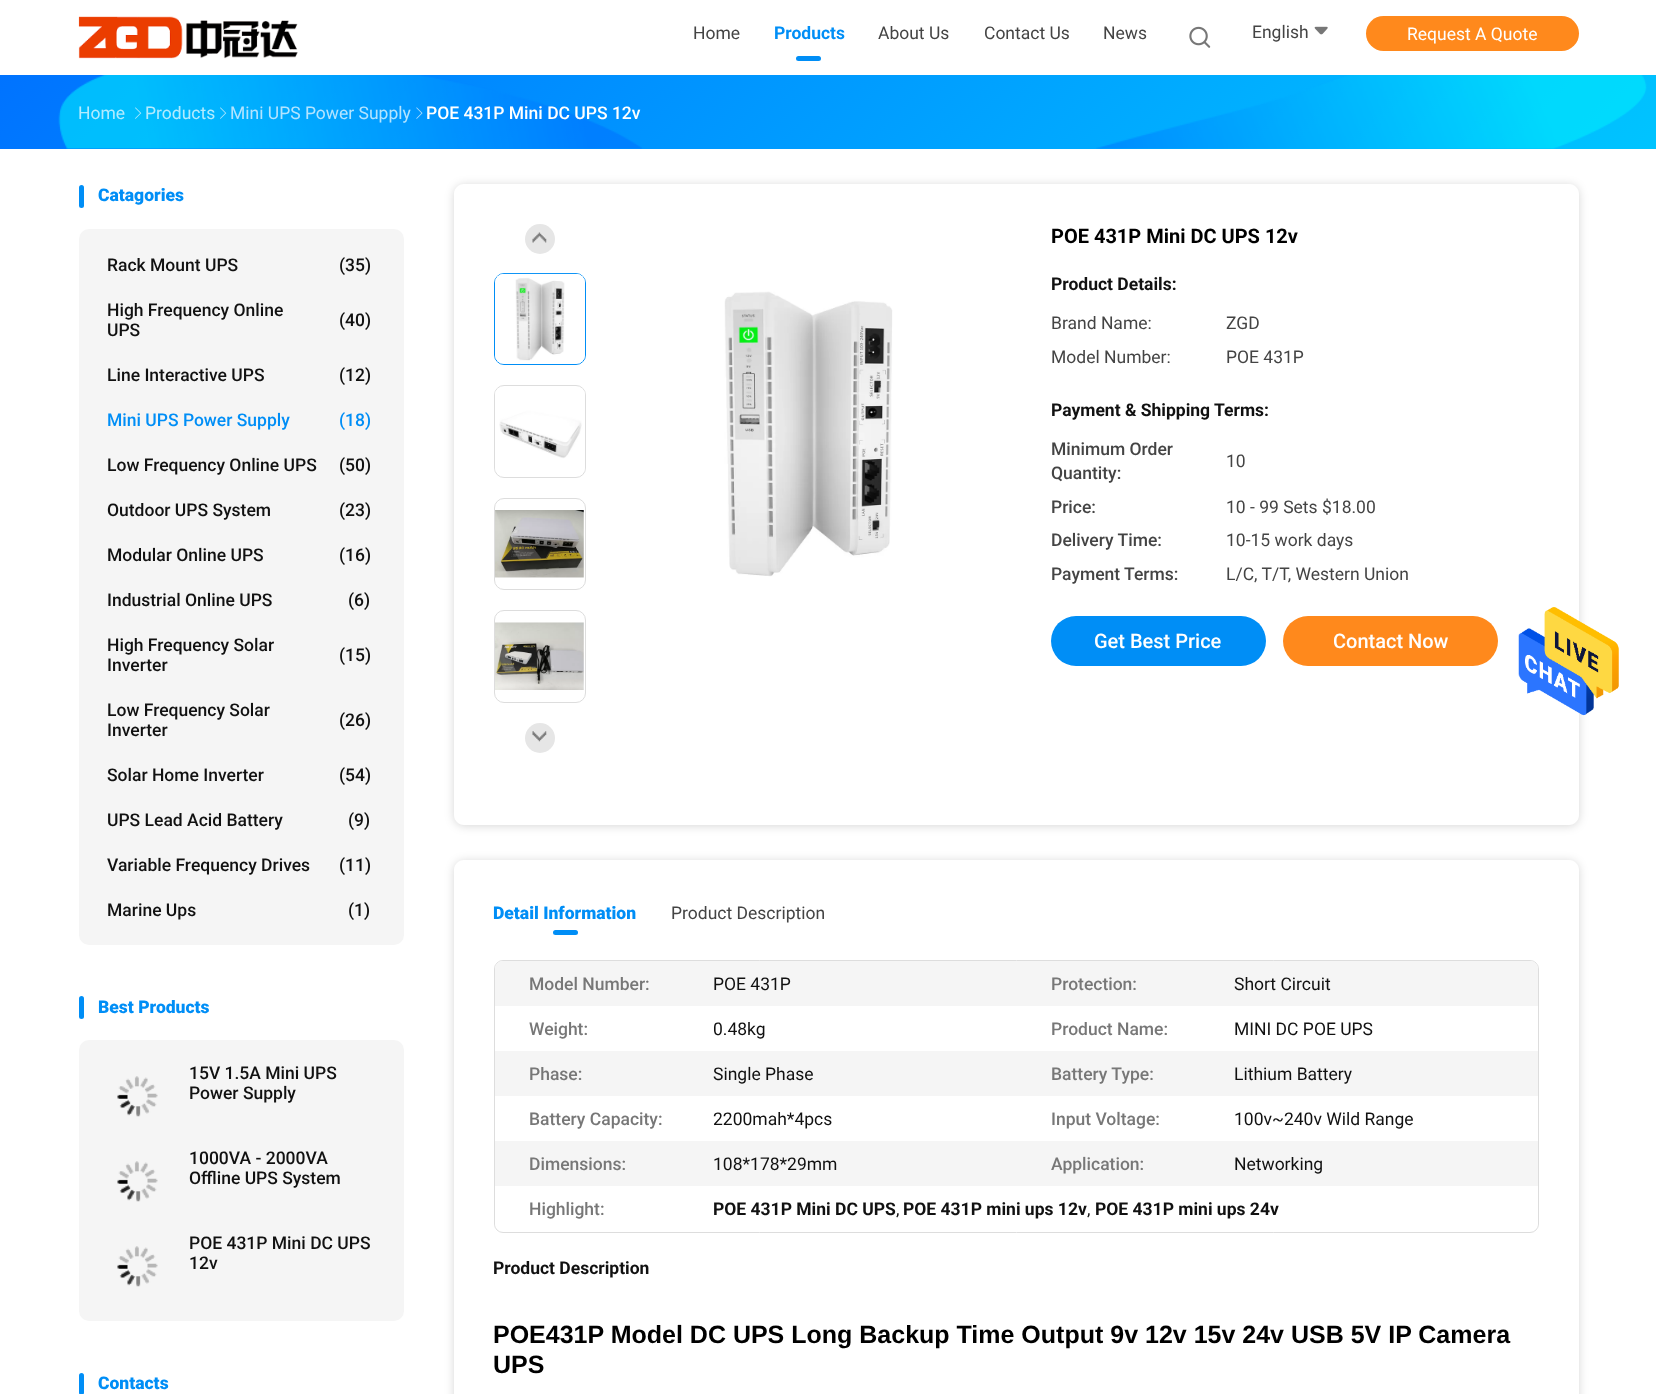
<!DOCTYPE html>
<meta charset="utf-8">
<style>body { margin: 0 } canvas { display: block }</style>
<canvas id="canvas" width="1656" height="1394"></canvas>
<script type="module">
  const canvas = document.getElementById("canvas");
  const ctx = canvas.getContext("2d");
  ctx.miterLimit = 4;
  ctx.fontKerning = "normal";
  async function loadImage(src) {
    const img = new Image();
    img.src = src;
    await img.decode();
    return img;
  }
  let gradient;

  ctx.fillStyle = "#ffffff";
  ctx.fillRect(0, 0, 1656, 1394);
  ctx.drawImage(await loadImage("img1.png"), 78, 16, 220, 43);
  ctx.font = "17.5px Roboto";
  ctx.fillStyle = "#444444";
  ctx.fillText("Home", 693, 39);
  ctx.font = "bold 17.5px Roboto";
  ctx.fillStyle = "#008ef6";
  ctx.fillText("Products", 774, 39);
  ctx.beginPath();
  ctx.roundRect(796, 56, 25, 5, 2.5);
  ctx.fill();
  ctx.font = "17.5px Roboto";
  ctx.fillStyle = "#444444";
  ctx.fillText("About Us", 878, 39);
  ctx.fillText("Contact Us", 984, 39);
  ctx.fillText("News", 1103, 39);
  ctx.drawImage(await loadImage("img2.png"), 1189, 26, 22, 22);
  ctx.fillText("English", 1252, 38);
  ctx.drawImage(await loadImage("img3.png"), 1314, 26, 14, 9);
  ctx.fillStyle = "#ff891c";
  ctx.beginPath();
  ctx.roundRect(1366, 16, 213, 35, 17.5);
  ctx.fill();
  ctx.fillStyle = "#ffffff";
  ctx.fillText("Request A Quote", 1407, 40);
  gradient = ctx.createLinearGradient(396, -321, 1261, 544);
  gradient.addColorStop(0, "#0073ff");
  gradient.addColorStop(1, "#00c4ff");
  ctx.fillStyle = gradient;
  ctx.fillRect(0, 75, 1656, 74);
  ctx.drawImage(await loadImage("img4.png"), 58, 75, 584, 74);
  ctx.drawImage(await loadImage("img5.png"), 1096, 75, 551, 74);
  ctx.fillStyle = "#b3ebfe";
  ctx.fillText("Home", 78, 119);
  ctx.drawImage(await loadImage("img6.png"), 135, 107, 7, 12);
  ctx.fillText("Products", 145, 119);
  ctx.drawImage(await loadImage("img7.png"), 220, 107, 7, 12);
  ctx.fillStyle = "#b3e4ff";
  ctx.fillText("Mini UPS Power Supply", 230, 119);
  ctx.drawImage(await loadImage("img8.png"), 416, 107, 7, 12);
  ctx.font = "500 17.5px Roboto";
  ctx.fillStyle = "#ffffff";
  ctx.fillText("POE 431P Mini DC UPS 12v", 426, 119);
  ctx.fillStyle = "#008ef6";
  ctx.beginPath();
  ctx.roundRect(79, 185, 5, 23, 2.5);
  ctx.fill();
  ctx.font = "900 17.5px Roboto";
  ctx.fillText("Catagories", 98, 201);
  ctx.fillStyle = "#f5f5f5";
  ctx.beginPath();
  ctx.roundRect(79, 229, 325, 716, 10);
  ctx.fill();
  ctx.font = "500 17.5px Roboto";
  ctx.fillStyle = "#111111";
  ctx.fillText("Rack Mount UPS", 107, 271);
  ctx.fillText("(35)", 339, 271);
  ctx.fillText("High Frequency Online", 107, 316);
  ctx.fillText("(40)", 339, 326);
  ctx.fillText("UPS", 107, 336);
  ctx.fillText("Line Interactive UPS", 107, 381);
  ctx.fillText("(12)", 339, 381);
  ctx.fillStyle = "#008ef6";
  ctx.fillText("Mini UPS Power Supply", 107, 426);
  ctx.fillText("(18)", 339, 426);
  ctx.fillStyle = "#111111";
  ctx.fillText("Low Frequency Online UPS", 107, 471);
  ctx.fillText("(50)", 339, 471);
  ctx.fillText("Outdoor UPS System", 107, 516);
  ctx.fillText("(23)", 339, 516);
  ctx.fillText("Modular Online UPS", 107, 561);
  ctx.fillText("(16)", 339, 561);
  ctx.fillText("Industrial Online UPS", 107, 606);
  ctx.fillText("(6)", 348, 606);
  ctx.fillText("High Frequency Solar", 107, 651);
  ctx.fillText("(15)", 339, 661);
  ctx.fillText("Inverter", 107, 671);
  ctx.fillText("Low Frequency Solar", 107, 716);
  ctx.fillText("(26)", 339, 726);
  ctx.fillText("Inverter", 107, 736);
  ctx.fillText("Solar Home Inverter", 107, 781);
  ctx.fillText("(54)", 339, 781);
  ctx.fillText("UPS Lead Acid Battery", 107, 826);
  ctx.fillText("(9)", 348, 826);
  ctx.fillText("Variable Frequency Drives", 107, 871);
  ctx.fillText("(11)", 339, 871);
  ctx.fillText("Marine Ups", 107, 916);
  ctx.fillText("(1)", 348, 916);
  ctx.fillStyle = "#008ef6";
  ctx.beginPath();
  ctx.roundRect(79, 996, 5, 23, 2.5);
  ctx.fill();
  ctx.font = "900 17.5px Roboto";
  ctx.fillText("Best Products", 98, 1013);
  ctx.fillStyle = "#f5f5f5";
  ctx.beginPath();
  ctx.roundRect(79, 1040, 325, 281, 10);
  ctx.fill();
  ctx.drawImage(await loadImage("img9.png"), 117, 1076, 41, 41);
  ctx.font = "500 17.5px Roboto";
  ctx.fillStyle = "#111111";
  ctx.fillText("15V 1.5A Mini UPS", 189, 1079);
  ctx.fillText("Power Supply", 189, 1099);
  ctx.drawImage(await loadImage("img10.png"), 117, 1161, 41, 41);
  ctx.fillText("1000VA - 2000VA", 189, 1164);
  ctx.fillText("Offline UPS System", 189, 1184);
  ctx.drawImage(await loadImage("img9.png"), 117, 1246, 41, 41);
  ctx.fillText("POE 431P Mini DC UPS", 189, 1249);
  ctx.fillText("12v", 189, 1269);
  ctx.fillStyle = "#008ef6";
  ctx.beginPath();
  ctx.roundRect(79, 1373, 5, 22, 2.5);
  ctx.fill();
  ctx.font = "900 17.5px Roboto";
  ctx.fillText("Contacts", 98, 1389);
  ctx.save();
  ctx.beginPath();
  ctx.moveTo(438, 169);
  ctx.lineTo(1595, 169);
  ctx.lineTo(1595, 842);
  ctx.lineTo(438, 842);
  ctx.closePath();
  ctx.moveTo(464, 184);
  ctx.lineTo(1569, 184);
  ctx.bezierCurveTo(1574.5, 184, 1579, 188.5, 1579, 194);
  ctx.lineTo(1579, 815);
  ctx.bezierCurveTo(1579, 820.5, 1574.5, 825, 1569, 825);
  ctx.lineTo(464, 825);
  ctx.bezierCurveTo(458.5, 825, 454, 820.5, 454, 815);
  ctx.lineTo(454, 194);
  ctx.bezierCurveTo(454, 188.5, 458.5, 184, 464, 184);
  ctx.closePath();
  ctx.clip("evenodd");
  ctx.fillStyle = "rgba(0, 0, 0, 0.16)";
  ctx.filter = "blur(5px)";
  ctx.beginPath();
  ctx.roundRect(454, 185, 1125, 641, 10);
  ctx.fill();
  ctx.filter = "none";
  ctx.restore();
  ctx.fillStyle = "#e6e6e6";
  ctx.beginPath();
  ctx.arc(540, 239, 15, 0, Math.PI * 2);
  ctx.fill();
  ctx.drawImage(await loadImage("img11.png"), 532, 232, 15, 11);
  ctx.beginPath();
  ctx.roundRect(494.5, 273.5, 91, 91, 9.5);
  ctx.strokeStyle = "#008ef6";
  ctx.stroke();
  ctx.drawImage(await loadImage("img12.png"), 495, 273, 90, 91);
  ctx.beginPath();
  ctx.roundRect(494.5, 385.5, 91, 92, 9.5);
  ctx.strokeStyle = "#dddddd";
  ctx.stroke();
  ctx.drawImage(await loadImage("img13.png"), 495, 388, 90, 83);
  ctx.beginPath();
  ctx.roundRect(494.5, 498.5, 91, 91, 9.5);
  ctx.stroke();
  ctx.drawImage(await loadImage("img14.png"), 495, 510, 89, 68);
  ctx.beginPath();
  ctx.roundRect(494.5, 610.5, 91, 92, 9.5);
  ctx.stroke();
  ctx.drawImage(await loadImage("img15.png"), 495, 622, 89, 68);
  ctx.beginPath();
  ctx.arc(540, 738, 15, 0, Math.PI * 2);
  ctx.fill();
  ctx.drawImage(await loadImage("img16.png"), 532, 731, 15, 11);
  ctx.drawImage(await loadImage("img17.png"), 724, 291, 169, 286);
  ctx.font = "bold 20px Roboto";
  ctx.fillStyle = "#000000";
  ctx.fillText("POE 431P Mini DC UPS 12v", 1051, 243);
  ctx.font = "bold 17.5px Roboto";
  ctx.fillStyle = "#111111";
  ctx.fillText("Product Details:", 1051, 290);
  ctx.font = "17.5px Roboto";
  ctx.fillStyle = "#444444";
  ctx.fillText("Brand Name:", 1051, 329);
  ctx.fillText("ZGD", 1226, 329);
  ctx.fillText("Model Number:", 1051, 363);
  ctx.fillText("POE 431P", 1226, 363);
  ctx.font = "bold 17.5px Roboto";
  ctx.fillStyle = "#111111";
  ctx.fillText("Payment & Shipping Terms:", 1051, 416);
  ctx.font = "500 17.5px Roboto";
  ctx.fillStyle = "#444444";
  ctx.fillText("Minimum Order", 1051, 455);
  ctx.fillText("Quantity:", 1051, 479);
  ctx.font = "17.5px Roboto";
  ctx.fillText("10", 1226, 467);
  ctx.font = "500 17.5px Roboto";
  ctx.fillText("Price:", 1051, 513);
  ctx.font = "17.5px Roboto";
  ctx.fillText("10 - 99 Sets $18.00", 1226, 513);
  ctx.font = "500 17.5px Roboto";
  ctx.fillText("Delivery Time:", 1051, 546);
  ctx.font = "17.5px Roboto";
  ctx.fillText("10-15 work days", 1226, 546);
  ctx.font = "500 17.5px Roboto";
  ctx.fillText("Payment Terms:", 1051, 580);
  ctx.font = "17.5px Roboto";
  ctx.fillText("L/C, T/T, Western Union", 1226, 580);
  ctx.fillStyle = "#008ef6";
  ctx.beginPath();
  ctx.roundRect(1051, 616, 215, 50, 25);
  ctx.fill();
  ctx.font = "500 20px Roboto";
  ctx.fillStyle = "#ffffff";
  ctx.fillText("Get Best Price", 1094, 648);
  ctx.fillStyle = "#ff891c";
  ctx.beginPath();
  ctx.roundRect(1283, 616, 215, 50, 25);
  ctx.fill();
  ctx.fillStyle = "#ffffff";
  ctx.fillText("Contact Now", 1333, 648);
  ctx.save();
  ctx.beginPath();
  ctx.moveTo(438, 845);
  ctx.lineTo(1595, 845);
  ctx.lineTo(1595, 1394);
  ctx.lineTo(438, 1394);
  ctx.closePath();
  ctx.moveTo(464, 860);
  ctx.lineTo(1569, 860);
  ctx.bezierCurveTo(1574.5, 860, 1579, 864.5, 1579, 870);
  ctx.lineTo(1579, 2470);
  ctx.bezierCurveTo(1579, 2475.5, 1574.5, 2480, 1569, 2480);
  ctx.lineTo(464, 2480);
  ctx.bezierCurveTo(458.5, 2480, 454, 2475.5, 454, 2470);
  ctx.lineTo(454, 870);
  ctx.bezierCurveTo(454, 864.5, 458.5, 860, 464, 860);
  ctx.closePath();
  ctx.clip("evenodd");
  ctx.fillStyle = "rgba(0, 0, 0, 0.16)";
  ctx.filter = "blur(5px)";
  ctx.beginPath();
  ctx.roundRect(454, 861, 1125, 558, 10);
  ctx.fill();
  ctx.filter = "none";
  ctx.restore();
  ctx.font = "900 17.5px Roboto";
  ctx.fillStyle = "#008ef6";
  ctx.fillText("Detail Information", 493, 919);
  ctx.beginPath();
  ctx.roundRect(553, 930, 25, 5, 2.5);
  ctx.fill();
  ctx.font = "17.5px Roboto";
  ctx.fillStyle = "#444444";
  ctx.fillText("Product Description", 671, 919);
  ctx.beginPath();
  ctx.roundRect(494.5, 960.5, 1044, 272, 8.5);
  ctx.stroke();
  ctx.fillStyle = "#f5f5f5";
  ctx.beginPath();
  ctx.roundRect(495, 961, 1043, 45, [8, 8, 0, 0]);
  ctx.fill();
  ctx.font = "500 17.5px Roboto";
  ctx.fillStyle = "#777777";
  ctx.fillText("Model Number:", 529, 990);
  ctx.font = "17.5px Roboto";
  ctx.fillStyle = "#111111";
  ctx.fillText("POE 431P", 713, 990);
  ctx.font = "500 17.5px Roboto";
  ctx.fillStyle = "#777777";
  ctx.fillText("Protection:", 1051, 990);
  ctx.font = "17.5px Roboto";
  ctx.fillStyle = "#111111";
  ctx.fillText("Short Circuit", 1234, 990);
  ctx.font = "500 17.5px Roboto";
  ctx.fillStyle = "#777777";
  ctx.fillText("Weight:", 529, 1035);
  ctx.font = "17.5px Roboto";
  ctx.fillStyle = "#111111";
  ctx.fillText("0.48kg", 713, 1035);
  ctx.font = "500 17.5px Roboto";
  ctx.fillStyle = "#777777";
  ctx.fillText("Product Name:", 1051, 1035);
  ctx.font = "17.5px Roboto";
  ctx.fillStyle = "#111111";
  ctx.fillText("MINI DC POE UPS", 1234, 1035);
  ctx.fillStyle = "#f5f5f5";
  ctx.fillRect(495, 1051, 1043, 45);
  ctx.font = "500 17.5px Roboto";
  ctx.fillStyle = "#777777";
  ctx.fillText("Phase:", 529, 1080);
  ctx.font = "17.5px Roboto";
  ctx.fillStyle = "#111111";
  ctx.fillText("Single Phase", 713, 1080);
  ctx.font = "500 17.5px Roboto";
  ctx.fillStyle = "#777777";
  ctx.fillText("Battery Type:", 1051, 1080);
  ctx.font = "17.5px Roboto";
  ctx.fillStyle = "#111111";
  ctx.fillText("Lithium Battery", 1234, 1080);
  ctx.font = "500 17.5px Roboto";
  ctx.fillStyle = "#777777";
  ctx.fillText("Battery Capacity:", 529, 1125);
  ctx.font = "17.5px Roboto";
  ctx.fillStyle = "#111111";
  ctx.fillText("2200mah*4pcs", 713, 1125);
  ctx.font = "500 17.5px Roboto";
  ctx.fillStyle = "#777777";
  ctx.fillText("Input Voltage:", 1051, 1125);
  ctx.font = "17.5px Roboto";
  ctx.fillStyle = "#111111";
  ctx.fillText("100v~240v Wild Range", 1234, 1125);
  ctx.fillStyle = "#f5f5f5";
  ctx.fillRect(495, 1141, 1043, 45);
  ctx.font = "500 17.5px Roboto";
  ctx.fillStyle = "#777777";
  ctx.fillText("Dimensions:", 529, 1170);
  ctx.font = "17.5px Roboto";
  ctx.fillStyle = "#111111";
  ctx.fillText("108*178*29mm", 713, 1170);
  ctx.font = "500 17.5px Roboto";
  ctx.fillStyle = "#777777";
  ctx.fillText("Application:", 1051, 1170);
  ctx.font = "17.5px Roboto";
  ctx.fillStyle = "#111111";
  ctx.fillText("Networking", 1234, 1170);
  ctx.fillStyle = "#ffffff";
  ctx.beginPath();
  ctx.roundRect(495, 1186, 1043, 45, [0, 0, 8, 8]);
  ctx.fill();
  ctx.font = "500 17.5px Roboto";
  ctx.fillStyle = "#777777";
  ctx.fillText("Highlight:", 529, 1215);
  ctx.font = "bold 17.5px Roboto";
  ctx.fillStyle = "#111111";
  ctx.fillText("POE 431P Mini DC UPS", 713, 1215);
  ctx.font = "17.5px Roboto";
  ctx.fillText(",", 896, 1215);
  ctx.font = "bold 17.5px Roboto";
  ctx.fillText("POE 431P mini ups 12v", 903, 1215);
  ctx.font = "17.5px Roboto";
  ctx.fillText(",", 1087, 1215);
  ctx.font = "bold 17.5px Roboto";
  ctx.fillText("POE 431P mini ups 24v", 1095, 1215);
  ctx.fillText("Product Description", 493, 1274);
  ctx.font = "bold 25px Liberation Sans";
  ctx.fillStyle = "#000000";
  ctx.fillText("POE431P Model DC UPS Long Backup Time Output 9v 12v 15v 24v USB 5V IP Camera", 493, 1343);
  ctx.fillText("UPS", 493, 1373);
  ctx.drawImage(await loadImage("img18.png"), 1518, 607, 101, 109);
</script>
